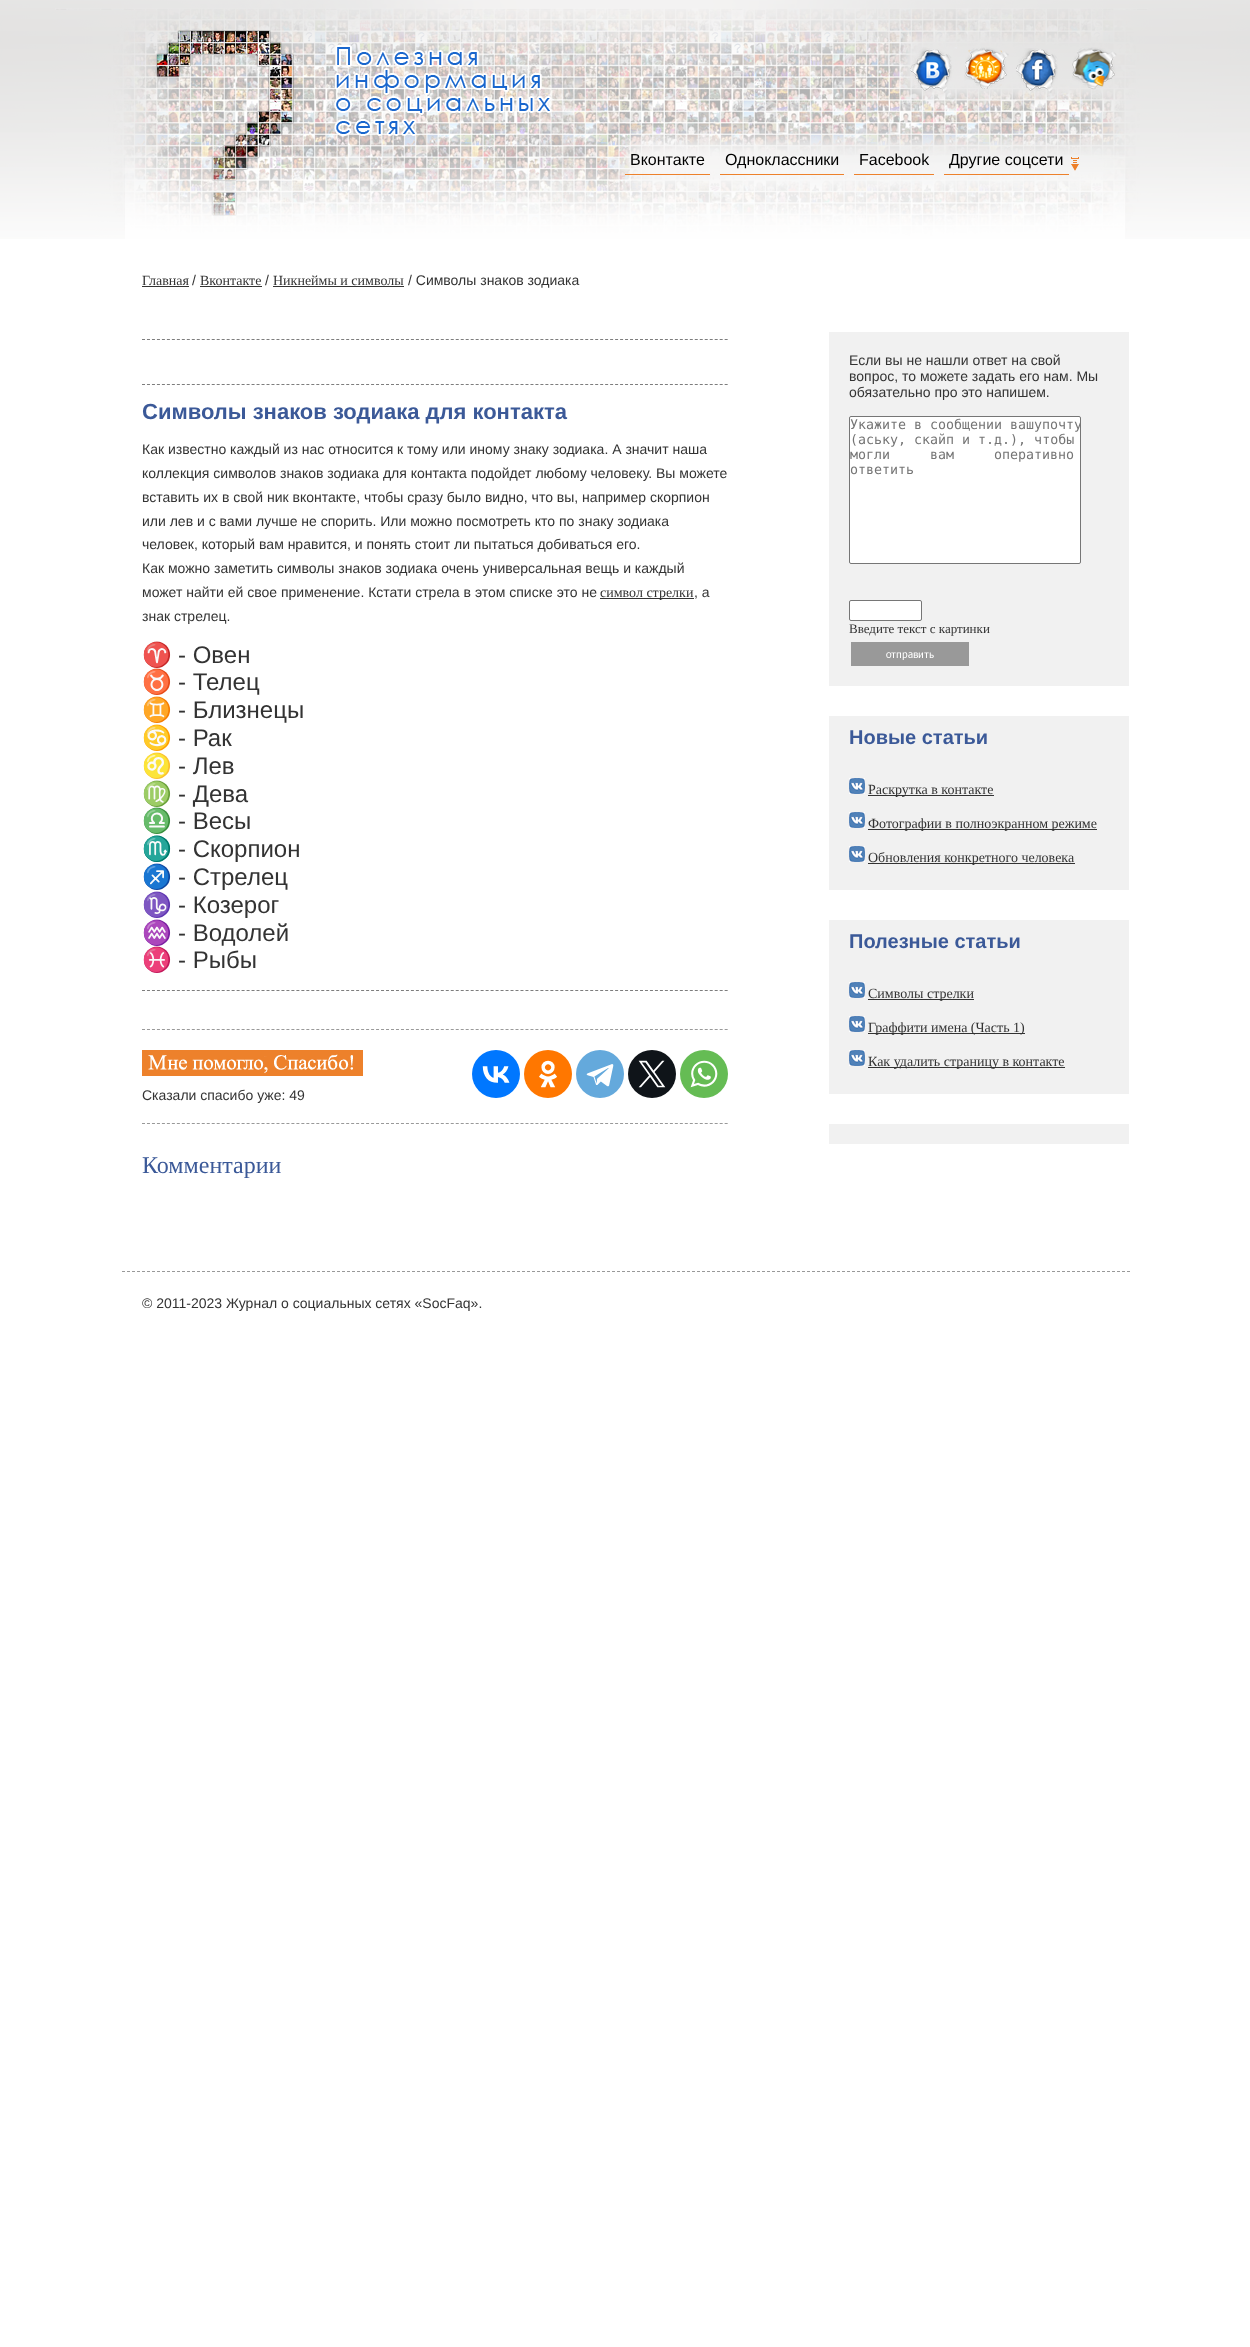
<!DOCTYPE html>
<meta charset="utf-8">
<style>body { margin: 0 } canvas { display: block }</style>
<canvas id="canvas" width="1250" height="2347"></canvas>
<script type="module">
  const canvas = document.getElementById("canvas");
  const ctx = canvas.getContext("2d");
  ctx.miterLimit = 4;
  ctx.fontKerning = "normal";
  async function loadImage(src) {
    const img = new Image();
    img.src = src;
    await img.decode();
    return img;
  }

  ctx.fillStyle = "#ffffff";
  ctx.fillRect(0, 0, 1250, 2347);
  ctx.drawImage(await loadImage("img1.png"), 0, 0, 1250, 239);
  ctx.drawImage(await loadImage("img2.png"), 910, 47, 47, 46);
  ctx.drawImage(await loadImage("img3.png"), 964, 47, 45, 42);
  ctx.drawImage(await loadImage("img4.png"), 1016, 48, 42, 45);
  ctx.drawImage(await loadImage("img5.png"), 1072, 47, 45, 43);
  ctx.fillStyle = "#ed812b";
  ctx.fillRect(625, 174, 85, 1);
  ctx.font = "16px Liberation Sans";
  ctx.fillStyle = "#000000";
  ctx.fillText("Вконтакте", 630, 165);
  ctx.fillStyle = "#ed812b";
  ctx.fillRect(720, 174, 124, 1);
  ctx.fillStyle = "#000000";
  ctx.fillText("Одноклассники", 725, 165);
  ctx.fillStyle = "#ed812b";
  ctx.fillRect(854, 174, 80, 1);
  ctx.fillStyle = "#000000";
  ctx.fillText("Facebook", 859, 165);
  ctx.drawImage(await loadImage("img6.png"), 1071, 157, 8, 14);
  ctx.fillStyle = "#ed812b";
  ctx.fillRect(944, 174, 125, 1);
  ctx.fillStyle = "#000000";
  ctx.fillText("Другие соцсети", 949, 165);
  ctx.font = "14px Liberation Serif";
  ctx.fillStyle = "#333333";
  ctx.fillText("Главная", 142, 285);
  ctx.fillRect(142, 286, 47, 1);
  ctx.font = "14px Liberation Sans";
  ctx.fillText("/", 192, 285);
  ctx.font = "14px Liberation Serif";
  ctx.fillText("Вконтакте", 200, 285);
  ctx.fillRect(200, 286, 62, 1);
  ctx.font = "14px Liberation Sans";
  ctx.fillText("/", 265, 285);
  ctx.font = "14px Liberation Serif";
  ctx.fillText("Никнеймы и символы", 273, 285);
  ctx.fillRect(273, 286, 131, 1);
  ctx.font = "14px Liberation Sans";
  ctx.fillText("/ Символы знаков зодиака", 408, 285);
  ctx.beginPath();
  ctx.moveTo(142, 339.5);
  ctx.lineTo(728, 339.5);
  ctx.strokeStyle = "#7d7d7d";
  ctx.setLineDash([3, 1.98]);
  ctx.stroke();
  ctx.beginPath();
  ctx.moveTo(142, 384.5);
  ctx.lineTo(728, 384.5);
  ctx.stroke();
  ctx.font = "bold 22px Liberation Sans";
  ctx.fillStyle = "#3b5998";
  ctx.fillText("Символы знаков зодиака для контакта", 142, 419);
  ctx.font = "14px Liberation Sans";
  ctx.fillStyle = "#333333";
  ctx.fillText("Как известно каждый из нас относится к тому или иному знаку зодиака. А значит наша", 142, 454);
  ctx.fillText("коллекция символов знаков зодиака для контакта подойдет любому человеку. Вы можете", 142, 478);
  ctx.fillText("вставить их в свой ник вконтакте, чтобы сразу было видно, что вы, например скорпион", 142, 502);
  ctx.fillText("или лев и с вами лучше не спорить. Или можно посмотреть кто по знаку зодиака", 142, 526);
  ctx.fillText("человек, который вам нравится, и понять стоит ли пытаться добиваться его.", 142, 549);
  ctx.fillText("Как можно заметить символы знаков зодиака очень универсальная вещь и каждый", 142, 573);
  ctx.fillText("может найти ей свое применение. Кстати стрела в этом списке это не", 142, 597);
  ctx.fillRect(600, 598, 94, 1);
  ctx.font = "14px Liberation Serif";
  ctx.fillText("символ стрелки", 600, 597);
  ctx.font = "14px Liberation Sans";
  ctx.fillText(", а", 694, 597);
  ctx.fillText("знак стрелец.", 142, 621);
  ctx.font = "24px Noto Color Emoji";
  ctx.fillText("♈", 142, 663);
  ctx.font = "24px Liberation Sans";
  ctx.fillText("- Овен", 178, 663);
  ctx.font = "24px Noto Color Emoji";
  ctx.fillText("♉", 142, 690);
  ctx.font = "24px Liberation Sans";
  ctx.fillText("- Телец", 178, 690);
  ctx.font = "24px Noto Color Emoji";
  ctx.fillText("♊", 142, 718);
  ctx.font = "24px Liberation Sans";
  ctx.fillText("- Близнецы", 178, 718);
  ctx.font = "24px Noto Color Emoji";
  ctx.fillText("♋", 142, 746);
  ctx.font = "24px Liberation Sans";
  ctx.fillText("- Рак", 178, 746);
  ctx.font = "24px Noto Color Emoji";
  ctx.fillText("♌", 142, 774);
  ctx.font = "24px Liberation Sans";
  ctx.fillText("- Лев", 178, 774);
  ctx.font = "24px Noto Color Emoji";
  ctx.fillText("♍", 142, 802);
  ctx.font = "24px Liberation Sans";
  ctx.fillText("- Дева", 178, 802);
  ctx.font = "24px Noto Color Emoji";
  ctx.fillText("♎", 142, 829);
  ctx.font = "24px Liberation Sans";
  ctx.fillText("- Весы", 178, 829);
  ctx.font = "24px Noto Color Emoji";
  ctx.fillText("♏", 142, 857);
  ctx.font = "24px Liberation Sans";
  ctx.fillText("- Скорпион", 178, 857);
  ctx.font = "24px Noto Color Emoji";
  ctx.fillText("♐", 142, 885);
  ctx.font = "24px Liberation Sans";
  ctx.fillText("- Стрелец", 178, 885);
  ctx.font = "24px Noto Color Emoji";
  ctx.fillText("♑", 142, 913);
  ctx.font = "24px Liberation Sans";
  ctx.fillText("- Козерог", 178, 913);
  ctx.font = "24px Noto Color Emoji";
  ctx.fillText("♒", 142, 941);
  ctx.font = "24px Liberation Sans";
  ctx.fillText("- Водолей", 178, 941);
  ctx.font = "24px Noto Color Emoji";
  ctx.fillText("♓", 142, 968);
  ctx.font = "24px Liberation Sans";
  ctx.fillText("- Рыбы", 178, 968);
  ctx.beginPath();
  ctx.moveTo(142, 990.5);
  ctx.lineTo(728, 990.5);
  ctx.stroke();
  ctx.beginPath();
  ctx.moveTo(142, 1029.5);
  ctx.lineTo(728, 1029.5);
  ctx.strokeStyle = "#999999";
  ctx.stroke();
  ctx.beginPath();
  ctx.moveTo(142, 1123.5);
  ctx.lineTo(728, 1123.5);
  ctx.stroke();
  ctx.drawImage(await loadImage("img7.png"), 142, 1050, 221, 26);
  ctx.font = "14px Liberation Sans";
  ctx.fillText("Сказали спасибо уже: 49", 142, 1100);
  ctx.fillStyle = "#0077ff";
  ctx.beginPath();
  ctx.arc(496, 1074, 24, 0, Math.PI * 2);
  ctx.fill();
  ctx.drawImage(await loadImage("img8.png"), 482, 1066, 28, 17);
  ctx.fillStyle = "#ff7700";
  ctx.beginPath();
  ctx.arc(548, 1074, 24, 0, Math.PI * 2);
  ctx.fill();
  ctx.drawImage(await loadImage("img9.png"), 539, 1060, 18, 28);
  ctx.fillStyle = "#64a9dc";
  ctx.beginPath();
  ctx.arc(600, 1074, 24, 0, Math.PI * 2);
  ctx.fill();
  ctx.drawImage(await loadImage("img10.png"), 586, 1064, 28, 23);
  ctx.fillStyle = "#0f1419";
  ctx.beginPath();
  ctx.arc(652, 1074, 24, 0, Math.PI * 2);
  ctx.fill();
  ctx.drawImage(await loadImage("img11.png"), 638, 1060, 28, 28);
  ctx.fillStyle = "#65bc54";
  ctx.beginPath();
  ctx.arc(704, 1074, 24, 0, Math.PI * 2);
  ctx.fill();
  ctx.drawImage(await loadImage("img12.png"), 690, 1060, 28, 28);
  ctx.font = "24px Liberation Serif";
  ctx.fillStyle = "#3b5998";
  ctx.fillText("Комментарии", 142, 1173);
  ctx.fillStyle = "#f1f1f1";
  ctx.fillRect(829, 332, 300, 354);
  ctx.font = "14px Liberation Sans";
  ctx.fillStyle = "#333333";
  ctx.fillText("Если вы не нашли ответ на свой", 849, 365);
  ctx.fillText("вопрос, то можете задать его нам. Мы", 849, 381);
  ctx.fillText("обязательно про это напишем.", 849, 397);
  ctx.fillStyle = "#ffffff";
  ctx.beginPath();
  ctx.roundRect(849.5, 416.5, 231, 147, 1.5);
  ctx.fill();
  ctx.strokeStyle = "#767676";
  ctx.setLineDash([]);
  ctx.stroke();
  ctx.font = "13.3px DejaVu Sans Mono";
  ctx.fillStyle = "#757575";
  ctx.fillText("Укажите в сообщении вашу", 850, 429);
  ctx.save();
  ctx.beginPath();
  ctx.rect(850, 417, 230, 146);
  ctx.clip();
  ctx.fillText("почту", 1042, 429);
  ctx.restore();
  ctx.fillText("(аську, скайп и т.д.), чтобы", 850, 444);
  ctx.save();
  ctx.beginPath();
  ctx.rect(850, 417, 230, 146);
  ctx.clip();
  ctx.wordSpacing = "32px";
  ctx.fillText("могли вам", 850, 459);
  ctx.restore();
  ctx.fillText("оперативно", 994, 459);
  ctx.fillText("ответить", 850, 474);
  ctx.fillStyle = "#ffffff";
  ctx.beginPath();
  ctx.roundRect(849.5, 600.5, 72, 20, 1.5);
  ctx.fill();
  ctx.stroke();
  ctx.font = "13px Liberation Serif";
  ctx.fillStyle = "#333333";
  ctx.fillText("Введите текст с картинки", 849, 633);
  ctx.drawImage(await loadImage("img13.png"), 851, 642, 118, 24);
  ctx.fillStyle = "#f1f1f1";
  ctx.fillRect(829, 716, 300, 174);
  ctx.font = "bold 20px Liberation Sans";
  ctx.fillStyle = "#3b5998";
  ctx.fillText("Новые статьи", 849, 744);
  ctx.drawImage(await loadImage("img14.png"), 849, 778, 16, 16);
  ctx.fillStyle = "#333333";
  ctx.fillRect(868, 795, 126, 1);
  ctx.font = "14px Liberation Serif";
  ctx.fillText("Раскрутка в контакте", 868, 794);
  ctx.drawImage(await loadImage("img14.png"), 849, 812, 16, 16);
  ctx.fillRect(868, 829, 229, 1);
  ctx.fillText("Фотографии в полноэкранном режиме", 868, 828);
  ctx.drawImage(await loadImage("img14.png"), 849, 846, 16, 16);
  ctx.fillRect(868, 863, 207, 1);
  ctx.fillText("Обновления конкретного человека", 868, 862);
  ctx.fillStyle = "#f1f1f1";
  ctx.fillRect(829, 920, 300, 174);
  ctx.font = "bold 20px Liberation Sans";
  ctx.fillStyle = "#3b5998";
  ctx.fillText("Полезные статьи", 849, 948);
  ctx.drawImage(await loadImage("img14.png"), 849, 982, 16, 16);
  ctx.fillStyle = "#333333";
  ctx.fillRect(868, 999, 106, 1);
  ctx.font = "14px Liberation Serif";
  ctx.fillText("Символы стрелки", 868, 998);
  ctx.drawImage(await loadImage("img14.png"), 849, 1016, 16, 16);
  ctx.fillRect(868, 1033, 157, 1);
  ctx.fillText("Граффити имена (Часть 1)", 868, 1032);
  ctx.drawImage(await loadImage("img14.png"), 849, 1050, 16, 16);
  ctx.fillRect(868, 1067, 197, 1);
  ctx.fillText("Как удалить страницу в контакте", 868, 1066);
  ctx.fillStyle = "#f1f1f1";
  ctx.fillRect(829, 1124, 300, 20);
  ctx.beginPath();
  ctx.moveTo(122, 1271.5);
  ctx.lineTo(1130, 1271.5);
  ctx.strokeStyle = "#999999";
  ctx.setLineDash([3, 2]);
  ctx.stroke();
  ctx.font = "14px Liberation Sans";
  ctx.fillStyle = "#333333";
  ctx.fillText("© 2011-2023 Журнал о социальных сетях «SocFaq».", 142, 1308);
</script>
